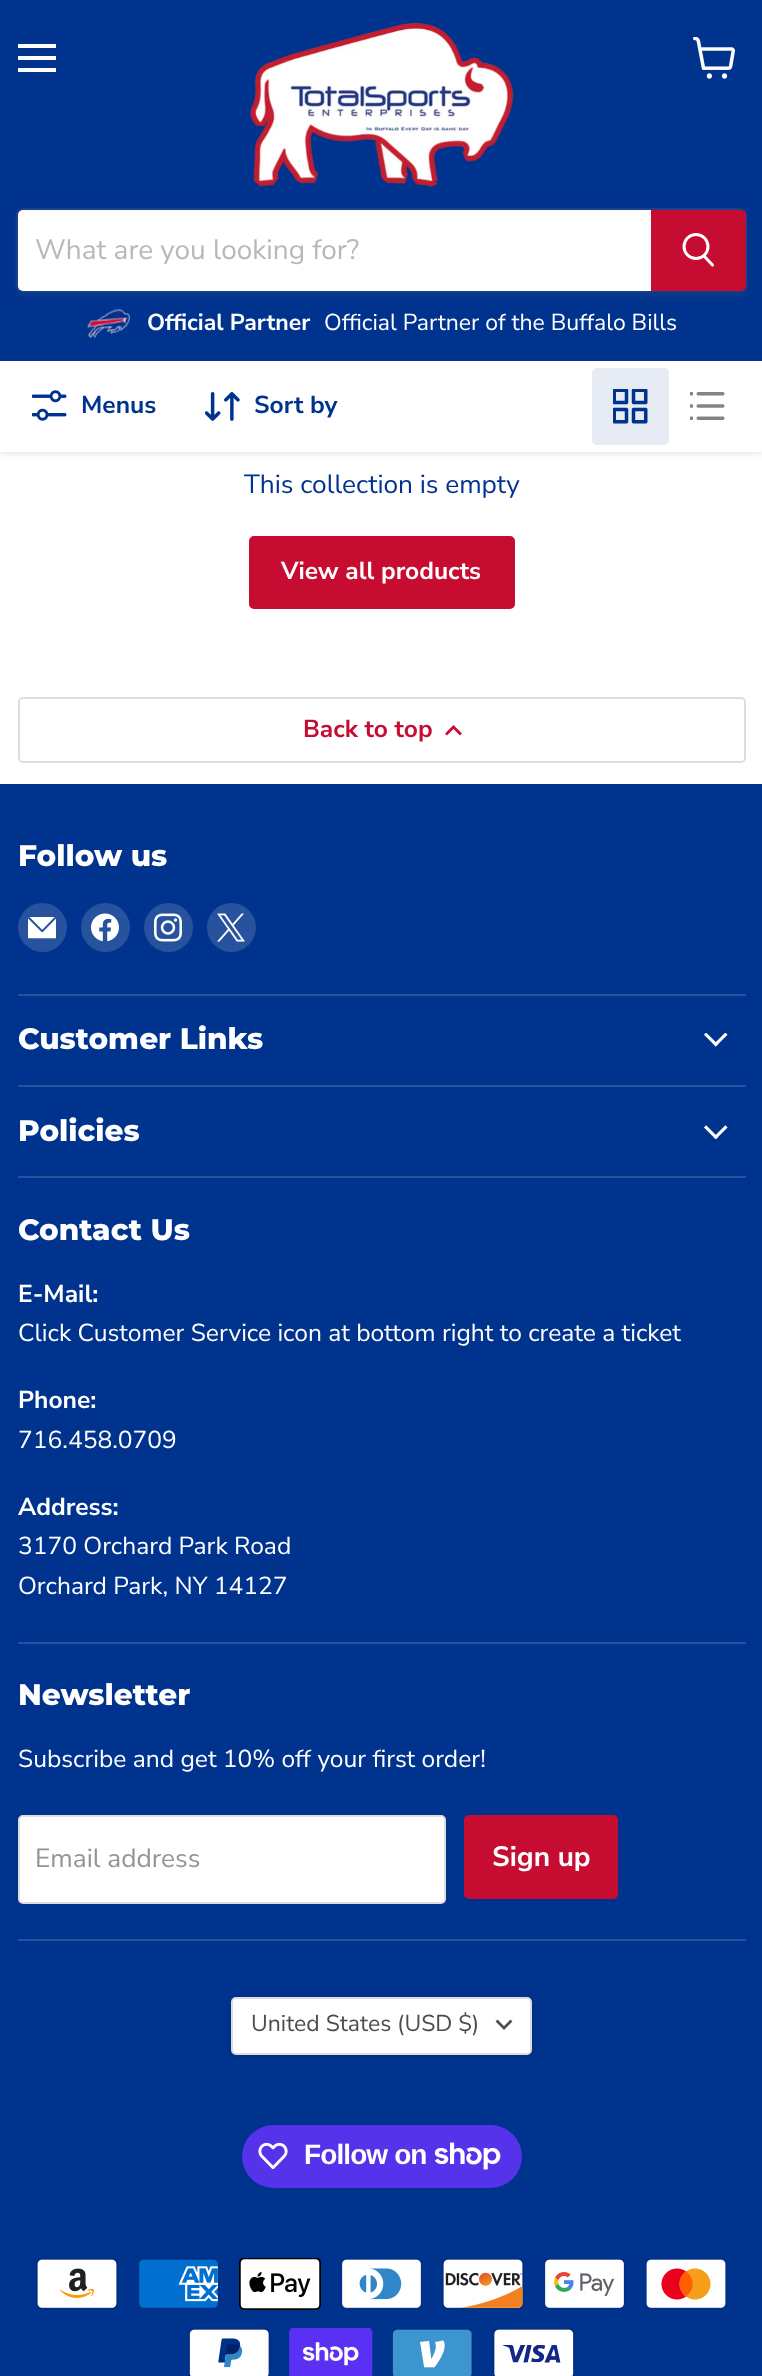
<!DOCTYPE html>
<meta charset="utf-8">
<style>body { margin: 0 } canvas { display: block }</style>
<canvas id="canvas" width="762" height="2376"></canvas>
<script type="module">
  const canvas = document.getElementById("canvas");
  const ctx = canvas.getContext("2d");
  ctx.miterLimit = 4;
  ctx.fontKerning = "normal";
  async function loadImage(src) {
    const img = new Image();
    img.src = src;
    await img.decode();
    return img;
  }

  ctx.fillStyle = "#ffffff";
  ctx.fillRect(0, 0, 762, 2376);
  ctx.fillStyle = "rgba(128, 128, 128, 0.25)";
  ctx.filter = "blur(3.5px)";
  ctx.beginPath();
  ctx.rect(0, 362, 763, 91);
  ctx.fill();
  ctx.filter = "none";
  ctx.fillStyle = "#00338d";
  ctx.fillRect(0, 0, 762, 361);
  ctx.fillStyle = "#ffffff";
  ctx.fillRect(18, 44, 38, 4);
  ctx.fillRect(18, 56, 38, 4);
  ctx.fillRect(18, 68, 38, 4);
  ctx.drawImage(await loadImage("img1.png"), 693, 37, 42, 42);
  ctx.drawImage(await loadImage("img2.png"), 249, 23, 265, 164);
  ctx.fillStyle = "rgba(128, 128, 128, 0.11)";
  ctx.filter = "blur(2.5px)";
  ctx.beginPath();
  ctx.roundRect(16, 212, 731, 84, 7);
  ctx.fill();
  ctx.filter = "none";
  ctx.beginPath();
  ctx.roundRect(17, 209, 729, 82, 6);
  ctx.strokeStyle = "#1a428a";
  ctx.lineWidth = 2;
  ctx.stroke();
  ctx.fillStyle = "#ffffff";
  ctx.beginPath();
  ctx.roundRect(18, 210, 633, 81, [5, 0, 0, 5]);
  ctx.fill();
  ctx.font = "28px Nunito Sans";
  ctx.fillStyle = "#b8b8b8";
  ctx.fillText("What are you looking for?", 35, 259);
  ctx.fillStyle = "#c60c30";
  ctx.beginPath();
  ctx.roundRect(652, 211, 93, 79, [0, 4, 4, 0]);
  ctx.fill();
  ctx.strokeStyle = "#c60c30";
  ctx.stroke();
  ctx.beginPath();
  ctx.moveTo(712.5, 265);
  ctx.lineTo(704.5, 256.5);
  ctx.strokeStyle = "#ffffff";
  ctx.lineWidth = 3;
  ctx.lineCap = "round";
  ctx.stroke();
  ctx.beginPath();
  ctx.arc(696, 246.5, 12, 0, Math.PI * 2);
  ctx.stroke();
  ctx.drawImage(await loadImage("img3.png"), 87, 309, 43, 29);
  ctx.font = "bold 23px Nunito Sans";
  ctx.fillStyle = "#ffffff";
  ctx.fillText("Official Partner", 147, 330);
  ctx.font = "23px Nunito Sans";
  ctx.fillText("Official Partner of the Buffalo Bills", 324, 330);
  ctx.fillRect(0, 361, 762, 91);
  ctx.drawImage(await loadImage("img4.png"), 32, 390, 35, 31);
  ctx.font = "bold 24.6px Nunito Sans";
  ctx.fillStyle = "#00338d";
  ctx.fillText("Menus", 81, 413);
  ctx.drawImage(await loadImage("img5.png"), 205, 392, 35, 29);
  ctx.fillText("Sort by", 254, 413);
  ctx.fillStyle = "#e6ebf4";
  ctx.beginPath();
  ctx.roundRect(592, 368, 77, 77, 5);
  ctx.fill();
  ctx.drawImage(await loadImage("img6.png"), 613, 389, 35, 35);
  ctx.drawImage(await loadImage("img7.png"), 690, 392, 35, 28);
  ctx.font = "26.25px Nunito Sans";
  ctx.fillStyle = "#00338d";
  ctx.fillText("This collection is empty", 244, 493);
  ctx.fillStyle = "#c60c30";
  ctx.beginPath();
  ctx.roundRect(250, 537, 264, 71, 4);
  ctx.fill();
  ctx.strokeStyle = "#c60c30";
  ctx.lineWidth = 2;
  ctx.stroke();
  ctx.font = "bold 24.5px Nunito Sans";
  ctx.fillStyle = "#ffffff";
  ctx.fillText("View all products", 281, 579);
  ctx.beginPath();
  ctx.roundRect(19, 698, 726, 64, 4);
  ctx.strokeStyle = "#dddddd";
  ctx.stroke();
  ctx.fillStyle = "#c60c30";
  ctx.fillText("Back to top", 303, 737);
  ctx.beginPath();
  ctx.moveTo(453.5, 727);
  ctx.lineTo(447, 733.5);
  ctx.moveTo(453.5, 727);
  ctx.lineTo(460, 733.5);
  ctx.strokeStyle = "#c60c30";
  ctx.lineWidth = 2.7;
  ctx.lineCap = "square";
  ctx.stroke();
  ctx.fillStyle = "#00338d";
  ctx.fillRect(0, 784, 762, 1592);
  ctx.fillStyle = "#26529e";
  ctx.fillRect(18, 994, 728, 2);
  ctx.font = "800 29.5px Montserrat";
  ctx.fillStyle = "#ffffff";
  ctx.fillText("Follow us", 18, 866);
  ctx.fillStyle = "#26529e";
  ctx.beginPath();
  ctx.arc(42.5, 927.5, 24.5, 0, Math.PI * 2);
  ctx.fill();
  ctx.drawImage(await loadImage("img8.png"), 28, 917, 28, 22);
  ctx.beginPath();
  ctx.arc(105.5, 927.5, 24.5, 0, Math.PI * 2);
  ctx.fill();
  ctx.drawImage(await loadImage("img9.png"), 91, 913, 28, 29);
  ctx.beginPath();
  ctx.arc(168.5, 927.5, 24.5, 0, Math.PI * 2);
  ctx.fill();
  ctx.drawImage(await loadImage("img10.png"), 154, 913, 28, 29);
  ctx.beginPath();
  ctx.arc(231.5, 927.5, 24.5, 0, Math.PI * 2);
  ctx.fill();
  ctx.drawImage(await loadImage("img11.png"), 217, 913, 28, 29);
  ctx.fillRect(18, 1085, 728, 2);
  ctx.fillStyle = "#ffffff";
  ctx.fillText("Customer Links", 18, 1049);
  ctx.drawImage(await loadImage("img12.png"), 704, 1033, 24, 14);
  ctx.fillStyle = "#26529e";
  ctx.fillRect(18, 1176, 728, 2);
  ctx.fillStyle = "#ffffff";
  ctx.fillText("Policies", 18, 1141);
  ctx.drawImage(await loadImage("img13.png"), 704, 1125, 24, 14);
  ctx.fillStyle = "#26529e";
  ctx.fillRect(18, 1642, 728, 2);
  ctx.fillStyle = "#ffffff";
  ctx.fillText("Contact Us", 18, 1240);
  ctx.font = "bold 24.6px Nunito Sans";
  ctx.fillText("E-Mail:", 18, 1302);
  ctx.font = "24.6px Nunito Sans";
  ctx.fillText("Click Customer Service icon at bottom right to create a ticket", 18, 1341);
  ctx.font = "bold 24.6px Nunito Sans";
  ctx.fillText("Phone:", 18, 1408);
  ctx.font = "24.6px Nunito Sans";
  ctx.fillText("716.458.0709", 18, 1448);
  ctx.font = "bold 24.6px Nunito Sans";
  ctx.fillText("Address:", 18, 1515);
  ctx.font = "24.6px Nunito Sans";
  ctx.fillText("3170 Orchard Park Road", 18, 1554);
  ctx.fillText("Orchard Park, NY 14127", 18, 1594);
  ctx.fillStyle = "#26529e";
  ctx.fillRect(18, 1939, 728, 2);
  ctx.font = "800 29.5px Montserrat";
  ctx.fillStyle = "#ffffff";
  ctx.fillText("Newsletter", 18, 1705);
  ctx.font = "24.6px Nunito Sans";
  ctx.fillText("Subscribe and get 10% off your first order!", 18, 1767);
  ctx.beginPath();
  ctx.roundRect(19, 1816, 426, 87, 4);
  ctx.fill();
  ctx.strokeStyle = "#dddddd";
  ctx.lineWidth = 2;
  ctx.stroke();
  ctx.font = "26.25px Nunito Sans";
  ctx.fillStyle = "#949494";
  ctx.fillText("Email address", 35, 1867);
  ctx.fillStyle = "#c60c30";
  ctx.beginPath();
  ctx.roundRect(465, 1816, 152, 82, 4);
  ctx.fill();
  ctx.strokeStyle = "#c60c30";
  ctx.stroke();
  ctx.font = "bold 28px Nunito Sans";
  ctx.fillStyle = "#ffffff";
  ctx.fillText("Sign up", 492, 1866);
  ctx.fillStyle = "rgba(0, 0, 0, 0.15)";
  ctx.filter = "blur(2px)";
  ctx.beginPath();
  ctx.roundRect(231, 1999, 301, 57, 5);
  ctx.fill();
  ctx.filter = "none";
  ctx.fillStyle = "#ffffff";
  ctx.beginPath();
  ctx.roundRect(232, 1998, 299, 56, 4);
  ctx.fill();
  ctx.strokeStyle = "#dddddd";
  ctx.stroke();
  ctx.font = "23px Nunito Sans";
  ctx.fillStyle = "#4d4d4d";
  ctx.fillText("United States (USD $)", 251, 2031);
  ctx.beginPath();
  ctx.moveTo(504, 2028);
  ctx.lineTo(510.5, 2021.5);
  ctx.moveTo(504, 2028);
  ctx.lineTo(497.5, 2021.5);
  ctx.strokeStyle = "#4d4d4d";
  ctx.lineWidth = 2.7;
  ctx.stroke();
  ctx.fillStyle = "#5433eb";
  ctx.beginPath();
  ctx.roundRect(242, 2125, 280, 63, 31.5);
  ctx.fill();
  ctx.drawImage(await loadImage("img14.png"), 258, 2142, 30, 28);
  ctx.letterSpacing = "-0.9px";
  ctx.font = "bold 28px Liberation Sans";
  ctx.fillStyle = "#ffffff";
  ctx.fillText("Follow on", 304, 2164);
  ctx.drawImage(await loadImage("img15.png"), 434, 2142, 67, 28);
  ctx.drawImage(await loadImage("img16.png"), 35, 2258, 84, 52);
  ctx.drawImage(await loadImage("img17.png"), 137, 2258, 83, 52);
  ctx.drawImage(await loadImage("img18.png"), 239, 2258, 82, 52);
  ctx.drawImage(await loadImage("img19.png"), 340, 2258, 83, 52);
  ctx.drawImage(await loadImage("img20.png"), 441, 2258, 84, 52);
  ctx.drawImage(await loadImage("img21.png"), 543, 2258, 83, 52);
  ctx.drawImage(await loadImage("img22.png"), 644, 2258, 84, 52);
  ctx.drawImage(await loadImage("img23.png"), 188, 2328, 83, 48);
  ctx.drawImage(await loadImage("img24.png"), 289, 2328, 84, 48);
  ctx.drawImage(await loadImage("img25.png"), 391, 2328, 83, 48);
  ctx.drawImage(await loadImage("img26.png"), 492, 2328, 83, 48);
</script>
